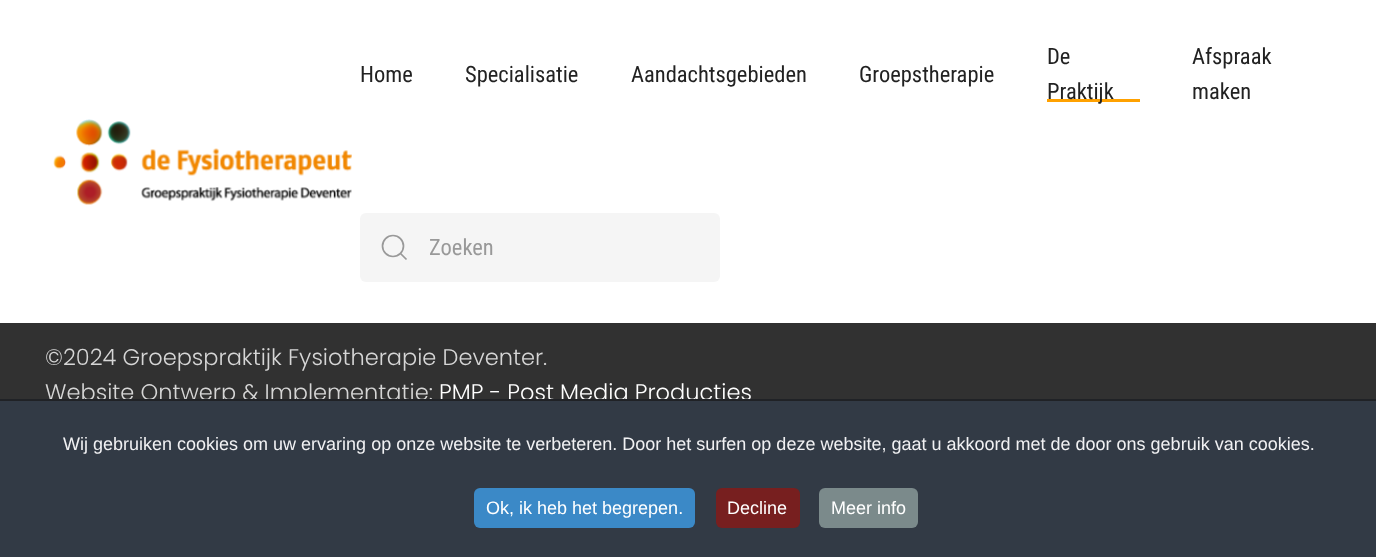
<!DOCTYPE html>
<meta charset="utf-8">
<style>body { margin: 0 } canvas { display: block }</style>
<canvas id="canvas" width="1376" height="557"></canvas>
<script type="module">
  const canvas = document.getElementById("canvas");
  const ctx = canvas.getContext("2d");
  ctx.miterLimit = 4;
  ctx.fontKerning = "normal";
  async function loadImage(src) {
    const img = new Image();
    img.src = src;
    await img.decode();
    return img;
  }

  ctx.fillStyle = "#313131";
  ctx.fillRect(0, 0, 1376, 557);
  ctx.fillStyle = "#ffffff";
  ctx.fillRect(0, 0, 1376, 323);
  ctx.drawImage(await loadImage("img1.png"), 53, 119, 299, 86);
  ctx.font = "22.5px Roboto Condensed";
  ctx.fillStyle = "#222222";
  ctx.fillText("Home", 360, 82);
  ctx.fillText("Specialisatie", 465, 82);
  ctx.fillText("Aandachtsgebieden", 631, 82);
  ctx.fillText("Groepstherapie", 859, 82);
  ctx.fillText("De", 1047, 64);
  ctx.fillStyle = "#ffa100";
  ctx.fillRect(1047, 99, 93, 3);
  ctx.fillStyle = "#222222";
  ctx.fillText("Praktijk", 1047, 99);
  ctx.fillText("Afspraak", 1192, 64);
  ctx.fillText("maken", 1192, 99);
  ctx.fillStyle = "#f5f5f5";
  ctx.beginPath();
  ctx.roundRect(360, 213, 360, 69, 6);
  ctx.fill();
  ctx.beginPath();
  ctx.arc(393, 246, 10.5, 0, Math.PI * 2);
  ctx.strokeStyle = "#999999";
  ctx.lineWidth = 1.7;
  ctx.stroke();
  ctx.beginPath();
  ctx.moveTo(400.5, 253.5);
  ctx.lineTo(406.5, 259.5);
  ctx.closePath();
  ctx.stroke();
  ctx.fillStyle = "#999999";
  ctx.fillText("Zoeken", 429, 255);
  ctx.font = "300 22.5px Poppins";
  ctx.fillStyle = "#d6d6d6";
  ctx.fillText("©2024 Groepspraktijk Fysiotherapie Deventer.", 45, 365);
  ctx.fillText("Website Ontwerp & Implementatie:", 45, 400);
  ctx.fillStyle = "#ffffff";
  ctx.fillText("PMP - Post Media Producties", 439, 400);
  ctx.fillStyle = "#323a45";
  ctx.fillRect(0, 401, 1376, 156);
  ctx.fillStyle = "#202226";
  ctx.fillRect(0, 399, 1376, 2);
  ctx.font = "18px Liberation Sans";
  ctx.fillStyle = "#f1f1f3";
  ctx.fillText("Wij gebruiken cookies om uw ervaring op onze website te verbeteren. Door het surfen op deze website, gaat u akkoord met de door ons gebruik van cookies.", 63, 450);
  ctx.fillStyle = "#3b89c7";
  ctx.beginPath();
  ctx.roundRect(474, 488, 221, 40, 6);
  ctx.fill();
  ctx.fillStyle = "#ffffff";
  ctx.fillText("Ok, ik heb het begrepen.", 486, 514);
  ctx.fillStyle = "#771f1f";
  ctx.beginPath();
  ctx.roundRect(716, 488, 84, 40, 6);
  ctx.fill();
  ctx.fillStyle = "#ffffff";
  ctx.fillText("Decline", 727, 514);
  ctx.fillStyle = "#7b8a8b";
  ctx.beginPath();
  ctx.roundRect(819, 488, 99, 40, 6);
  ctx.fill();
  ctx.fillStyle = "#ffffff";
  ctx.fillText("Meer info", 831, 514);
</script>
